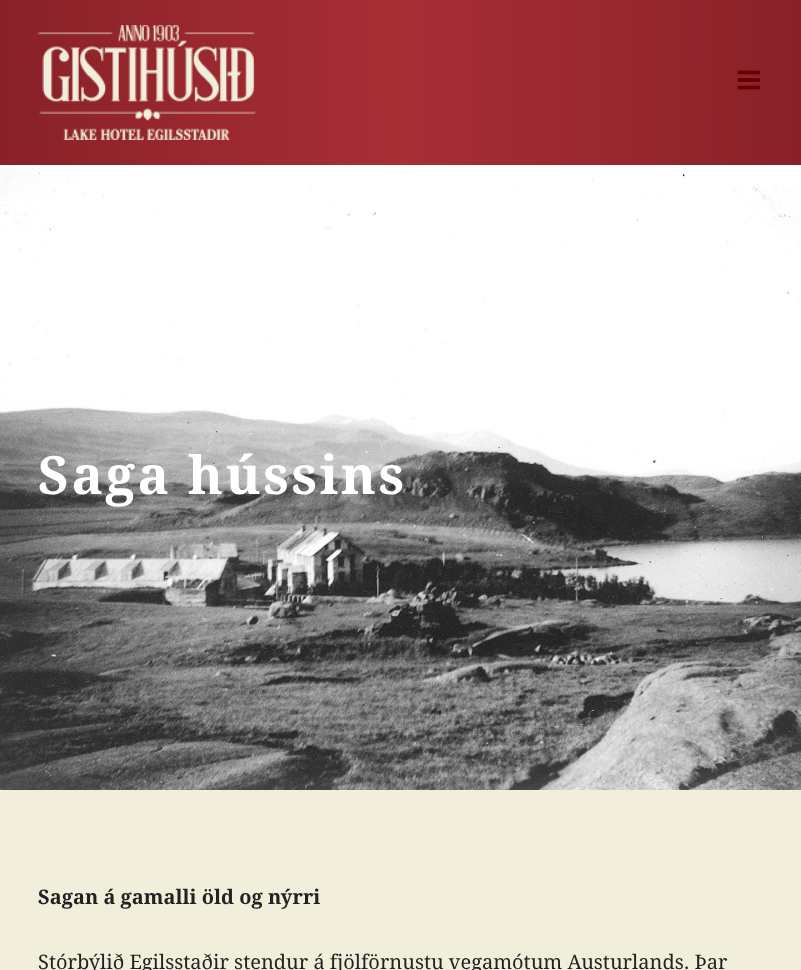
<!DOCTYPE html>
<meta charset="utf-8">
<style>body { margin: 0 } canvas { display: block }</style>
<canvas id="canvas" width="801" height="970"></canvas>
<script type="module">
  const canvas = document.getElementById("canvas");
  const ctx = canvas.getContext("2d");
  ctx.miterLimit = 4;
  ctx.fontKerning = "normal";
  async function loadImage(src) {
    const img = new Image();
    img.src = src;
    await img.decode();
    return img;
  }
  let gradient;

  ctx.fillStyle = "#f1efdb";
  ctx.fillRect(0, 0, 801, 970);
  gradient = ctx.createLinearGradient(0, 83, 801, 82);
  gradient.addColorStop(0, "#892128");
  gradient.addColorStop(0.5, "#a92e36");
  gradient.addColorStop(1, "#892128");
  ctx.fillStyle = gradient;
  ctx.fillRect(0, 0, 801, 165);
  ctx.drawImage(await loadImage("img1.png"), 37, 25, 220, 115);
  ctx.drawImage(await loadImage("img2.png"), 737, 70, 23, 20);
  ctx.drawImage(await loadImage("img3.png"), 0, 165, 801, 625);
  ctx.letterSpacing = "2.5px";
  ctx.font = "bold 52.75px Droid Serif";
  ctx.fillStyle = "#ffffff";
  ctx.fillText("Saga hússins", 38, 494);
  ctx.letterSpacing = "0px";
  ctx.font = "bold 20px Droid Serif";
  ctx.fillStyle = "#222222";
  ctx.fillText("Sagan á gamalli öld og nýrri", 38, 904);
  ctx.font = "20px Droid Serif";
  ctx.fillText("Stórbýlið Egilsstaðir stendur á fjölförnustu vegamótum Austurlands. Þar", 38, 969);
</script>
